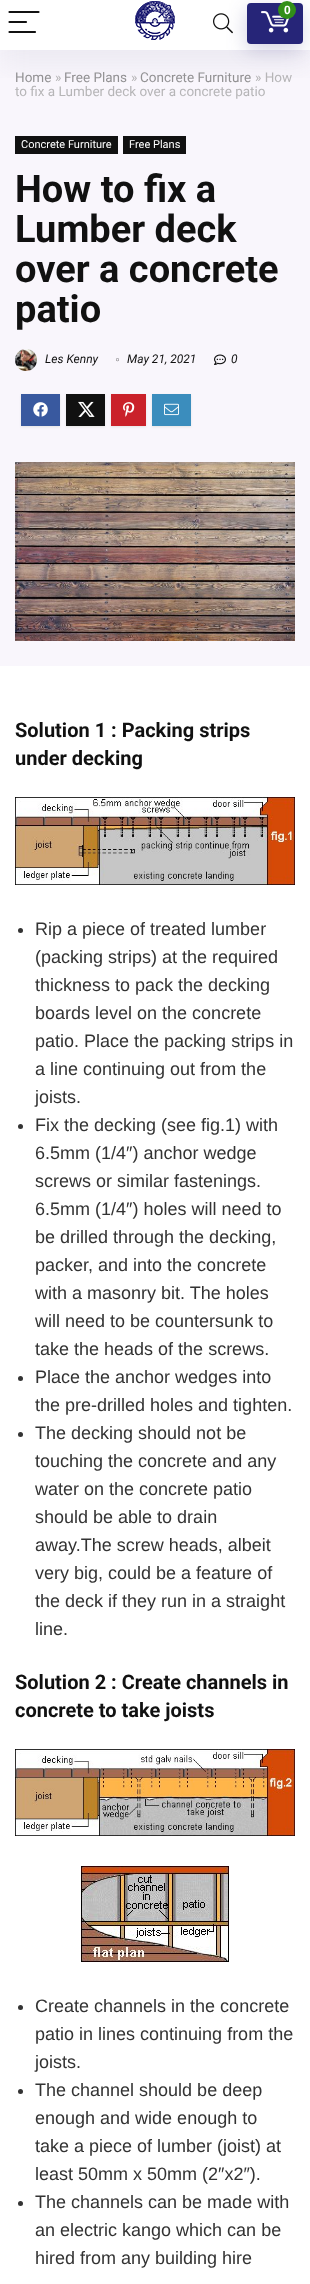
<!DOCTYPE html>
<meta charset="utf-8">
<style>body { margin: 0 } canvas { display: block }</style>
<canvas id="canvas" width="310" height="2284"></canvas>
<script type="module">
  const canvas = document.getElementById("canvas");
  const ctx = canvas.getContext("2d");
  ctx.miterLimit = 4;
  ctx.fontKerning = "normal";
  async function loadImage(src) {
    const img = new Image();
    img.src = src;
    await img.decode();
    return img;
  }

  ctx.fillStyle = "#ffffff";
  ctx.fillRect(0, 0, 310, 2284);
  ctx.fillStyle = "#f9f6fc";
  ctx.fillRect(0, 50, 310, 616);
  ctx.save();
  ctx.beginPath();
  ctx.rect(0, 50, 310, 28);
  ctx.clip();
  ctx.fillStyle = "rgba(119, 123, 146, 0.1)";
  ctx.filter = "blur(15px)";
  ctx.beginPath();
  ctx.rect(0, 7, 310, 58);
  ctx.fill();
  ctx.filter = "none";
  ctx.restore();
  ctx.beginPath();
  ctx.moveTo(9.5, 12);
  ctx.lineTo(38.5, 12);
  ctx.moveTo(9.5, 22);
  ctx.lineTo(26, 22);
  ctx.moveTo(9.5, 32);
  ctx.lineTo(35, 32);
  ctx.strokeStyle = "#111111";
  ctx.lineWidth = 2.2;
  ctx.lineCap = "round";
  ctx.stroke();
  ctx.drawImage(await loadImage("img1.png"), 135, 1, 40, 39);
  ctx.fillStyle = "rgba(38, 37, 120, 0.2)";
  ctx.filter = "blur(9.5px)";
  ctx.beginPath();
  ctx.roundRect(246, 9, 56, 41, 4);
  ctx.fill();
  ctx.filter = "none";
  ctx.fillStyle = "#262578";
  ctx.beginPath();
  ctx.roundRect(247, 3, 56, 41, 4);
  ctx.fill();
  ctx.drawImage(await loadImage("img2.png"), 261, 11, 28, 22);
  ctx.fillStyle = "#318f18";
  ctx.beginPath();
  ctx.arc(287, 10, 9, 0, Math.PI * 2);
  ctx.fill();
  ctx.font = "bold 12px Liberation Sans";
  ctx.fillStyle = "#ffffff";
  ctx.fillText("0", 284, 14);
  ctx.drawImage(await loadImage("img3.png"), 213, 13, 20, 21);
  ctx.font = "13.5px Roboto";
  ctx.fillStyle = "#929193";
  ctx.fillText("Home", 15, 82);
  ctx.fillStyle = "#b6b5b7";
  ctx.fillText("»", 55, 82);
  ctx.fillStyle = "#929193";
  ctx.fillText("Free Plans", 64, 82);
  ctx.fillStyle = "#b6b5b7";
  ctx.fillText("»", 131, 82);
  ctx.fillStyle = "#929193";
  ctx.fillText("Concrete Furniture", 140, 82);
  ctx.fillStyle = "#b6b5b7";
  ctx.fillText("» How", 255, 82);
  ctx.fillText("to fix a Lumber deck over a concrete patio", 15, 96);
  ctx.fillStyle = "#111111";
  ctx.fillRect(15, 136, 103, 18);
  ctx.font = "11px Roboto";
  ctx.fillStyle = "#ffffff";
  ctx.fillText("Concrete Furniture", 21, 148);
  ctx.fillStyle = "#111111";
  ctx.fillRect(123, 136, 63, 18);
  ctx.fillStyle = "#ffffff";
  ctx.fillText("Free Plans", 129, 148);
  ctx.font = "bold 38px Roboto";
  ctx.fillStyle = "#111111";
  ctx.fillText("How to fix a", 15, 202);
  ctx.fillText("Lumber deck", 15, 242);
  ctx.fillText("over a concrete", 15, 282);
  ctx.fillText("patio", 15, 322);
  ctx.drawImage(await loadImage("img4.png"), 15, 349, 22, 22);
  ctx.font = "italic 12px Roboto";
  ctx.fillText("Les Kenny", 45, 363);
  ctx.drawImage(await loadImage("img5.png"), 116, 358, 3, 4);
  ctx.fillText("May 21, 2021", 127, 363);
  ctx.drawImage(await loadImage("img6.png"), 214, 354, 12, 11);
  ctx.fillText("0", 231, 363);
  ctx.fillStyle = "#e4e4e4";
  ctx.filter = "blur(1px)";
  ctx.beginPath();
  ctx.rect(21, 395, 39, 32);
  ctx.fill();
  ctx.filter = "none";
  ctx.fillStyle = "#39599f";
  ctx.fillRect(21, 394, 39, 32);
  ctx.drawImage(await loadImage("img7.png"), 33, 402, 15, 15);
  ctx.fillStyle = "#e4e4e4";
  ctx.filter = "blur(1px)";
  ctx.beginPath();
  ctx.rect(66, 395, 39, 32);
  ctx.fill();
  ctx.filter = "none";
  ctx.fillStyle = "#111111";
  ctx.fillRect(66, 394, 39, 32);
  ctx.drawImage(await loadImage("img8.png"), 78, 401, 17, 16);
  ctx.fillStyle = "#e4e4e4";
  ctx.filter = "blur(1px)";
  ctx.beginPath();
  ctx.rect(111, 395, 35, 32);
  ctx.fill();
  ctx.filter = "none";
  ctx.fillStyle = "#ca212a";
  ctx.fillRect(111, 394, 35, 32);
  ctx.drawImage(await loadImage("img9.png"), 123, 402, 12, 15);
  ctx.fillStyle = "#e4e4e4";
  ctx.filter = "blur(1px)";
  ctx.beginPath();
  ctx.rect(152, 395, 39, 32);
  ctx.fill();
  ctx.filter = "none";
  ctx.fillStyle = "#3b8dbd";
  ctx.fillRect(152, 394, 39, 32);
  ctx.drawImage(await loadImage("img10.png"), 164, 403, 15, 13);
  ctx.drawImage(await loadImage("img11.png"), 15, 462, 280, 179);
  ctx.font = "bold 20px Roboto";
  ctx.fillStyle = "#111111";
  ctx.fillText("Solution 1 : Packing strips", 15, 737);
  ctx.fillText("under decking", 15, 765);
  ctx.drawImage(await loadImage("img12.png"), 15, 797, 280, 88);
  ctx.fillStyle = "#333333";
  ctx.beginPath();
  ctx.arc(20.5, 930.5, 2.5, 0, Math.PI * 2);
  ctx.fill();
  ctx.font = "18px Liberation Sans";
  ctx.fillText("Rip a piece of treated lumber", 35, 935);
  ctx.fillText("(packing strips) at the required", 35, 963);
  ctx.fillText("thickness to pack the decking", 35, 991);
  ctx.fillText("boards level on the concrete", 35, 1019);
  ctx.fillText("patio. Place the packing strips in", 35, 1047);
  ctx.fillText("a line continuing out from the", 35, 1075);
  ctx.fillText("joists.", 35, 1103);
  ctx.beginPath();
  ctx.arc(20.5, 1126.5, 2.5, 0, Math.PI * 2);
  ctx.fill();
  ctx.fillText("Fix the decking (see fig.1) with", 35, 1131);
  ctx.fillText("6.5mm (1/4″) anchor wedge", 35, 1159);
  ctx.fillText("screws or similar fastenings.", 35, 1187);
  ctx.fillText("6.5mm (1/4″) holes will need to", 35, 1215);
  ctx.fillText("be drilled through the decking,", 35, 1243);
  ctx.fillText("packer, and into the concrete", 35, 1271);
  ctx.fillText("with a masonry bit. The holes", 35, 1299);
  ctx.fillText("will need to be countersunk to", 35, 1327);
  ctx.fillText("take the heads of the screws.", 35, 1355);
  ctx.beginPath();
  ctx.arc(20.5, 1378.5, 2.5, 0, Math.PI * 2);
  ctx.fill();
  ctx.fillText("Place the anchor wedges into", 35, 1383);
  ctx.fillText("the pre-drilled holes and tighten.", 35, 1411);
  ctx.beginPath();
  ctx.arc(20.5, 1434.5, 2.5, 0, Math.PI * 2);
  ctx.fill();
  ctx.fillText("The decking should not be", 35, 1439);
  ctx.fillText("touching the concrete and any", 35, 1467);
  ctx.fillText("water on the concrete patio", 35, 1495);
  ctx.fillText("should be able to drain", 35, 1523);
  ctx.fillText("away.The screw heads, albeit", 35, 1551);
  ctx.fillText("very big, could be a feature of", 35, 1579);
  ctx.fillText("the deck if they run in a straight", 35, 1607);
  ctx.fillText("line.", 35, 1635);
  ctx.font = "bold 20px Roboto";
  ctx.fillStyle = "#111111";
  ctx.fillText("Solution 2 : Create channels in", 15, 1689);
  ctx.fillText("concrete to take joists", 15, 1717);
  ctx.drawImage(await loadImage("img13.png"), 15, 1749, 280, 87);
  ctx.drawImage(await loadImage("img14.png"), 81, 1866, 148, 96);
  ctx.fillStyle = "#333333";
  ctx.beginPath();
  ctx.arc(20.5, 2007.5, 2.5, 0, Math.PI * 2);
  ctx.fill();
  ctx.font = "18px Liberation Sans";
  ctx.fillText("Create channels in the concrete", 35, 2012);
  ctx.fillText("patio in lines continuing from the", 35, 2040);
  ctx.fillText("joists.", 35, 2068);
  ctx.beginPath();
  ctx.arc(20.5, 2091.5, 2.5, 0, Math.PI * 2);
  ctx.fill();
  ctx.fillText("The channel should be deep", 35, 2096);
  ctx.fillText("enough and wide enough to", 35, 2124);
  ctx.fillText("take a piece of lumber (joist) at", 35, 2152);
  ctx.fillText("least 50mm x 50mm (2″x2″).", 35, 2180);
  ctx.beginPath();
  ctx.arc(20.5, 2203.5, 2.5, 0, Math.PI * 2);
  ctx.fill();
  ctx.fillText("The channels can be made with", 35, 2208);
  ctx.fillText("an electric kango which can be", 35, 2236);
  ctx.fillText("hired from any building hire", 35, 2264);
</script>
